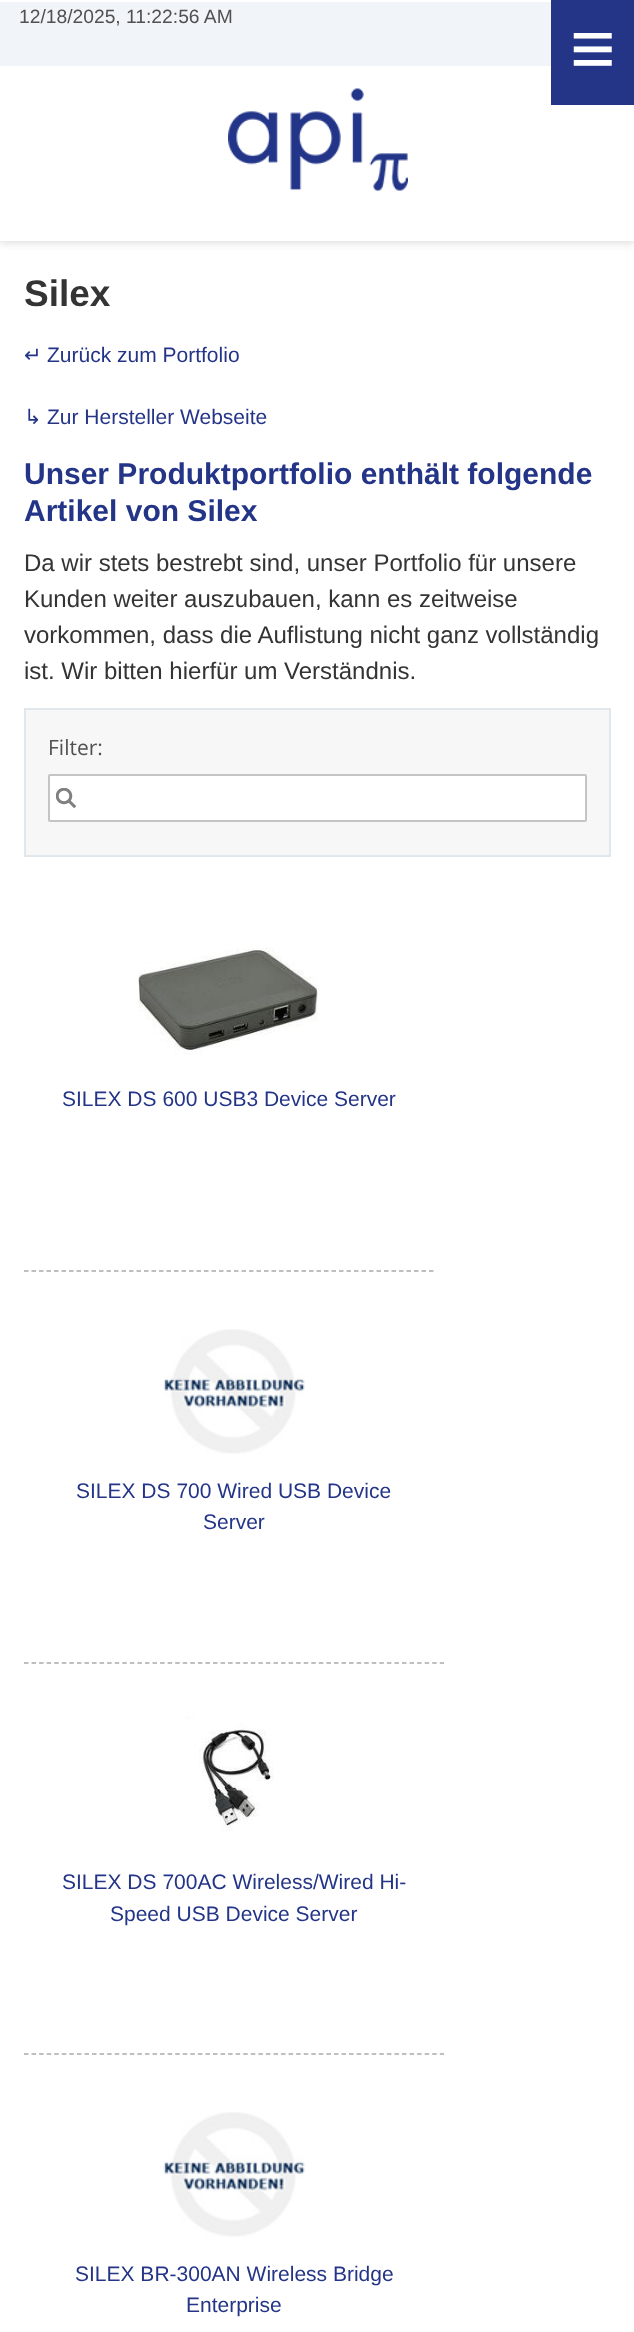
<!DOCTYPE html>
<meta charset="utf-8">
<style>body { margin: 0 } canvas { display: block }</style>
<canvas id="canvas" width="634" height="2332"></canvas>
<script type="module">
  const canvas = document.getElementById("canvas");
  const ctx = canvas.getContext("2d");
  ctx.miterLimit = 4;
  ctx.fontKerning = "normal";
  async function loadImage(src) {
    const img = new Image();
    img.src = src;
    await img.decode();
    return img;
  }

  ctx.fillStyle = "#ffffff";
  ctx.fillRect(0, 0, 634, 2332);
  ctx.save();
  ctx.beginPath();
  ctx.rect(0, 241, 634, 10);
  ctx.clip();
  ctx.fillStyle = "#dddddd";
  ctx.filter = "blur(4px)";
  ctx.beginPath();
  ctx.rect(0, 3, 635, 240);
  ctx.fill();
  ctx.filter = "none";
  ctx.restore();
  ctx.fillRect(0, 240, 634, 1);
  ctx.fillStyle = "#f1f4f9";
  ctx.fillRect(0, 2, 551, 64);
  ctx.font = "19.25px Liberation Sans";
  ctx.fillStyle = "#515151";
  ctx.fillText("12/18/2025, 11:22:56 AM", 19, 23);
  ctx.fillStyle = "#243588";
  ctx.fillRect(551, 0, 83, 105);
  ctx.font = "78px Liberation Sans";
  ctx.fillStyle = "#ffffff";
  ctx.fillText("≡", 570, 75);
  ctx.drawImage(await loadImage("img1.png"), 228, 88, 180, 103);
  ctx.font = "bold 37px Liberation Sans";
  ctx.fillStyle = "#343434";
  ctx.fillText("Silex", 24, 306);
  ctx.font = "21px DejaVu Sans";
  ctx.fillStyle = "#243588";
  ctx.fillText("↵", 24, 362);
  ctx.font = "21px Liberation Sans";
  ctx.fillText("Zurück zum Portfolio", 47, 362);
  ctx.font = "21px DejaVu Sans";
  ctx.fillText("↳", 24, 424);
  ctx.font = "21px Liberation Sans";
  ctx.fillText("Zur Hersteller Webseite", 47, 424);
  ctx.font = "bold 30px Liberation Sans";
  ctx.fillText("Unser Produktportfolio enthält folgende", 24, 484);
  ctx.fillText("Artikel von Silex", 24, 521);
  ctx.font = "24px Liberation Sans";
  ctx.fillStyle = "#343434";
  ctx.fillText("Da wir stets bestrebt sind, unser Portfolio für unsere", 24, 571);
  ctx.fillText("Kunden weiter auszubauen, kann es zeitweise", 24, 607);
  ctx.fillText("vorkommen, dass die Auflistung nicht ganz vollständig", 24, 643);
  ctx.fillText("ist. Wir bitten hierfür um Verständnis.", 24, 679);
  ctx.fillStyle = "#f7f7f7";
  ctx.beginPath();
  ctx.rect(25, 709, 585, 147);
  ctx.fill();
  ctx.strokeStyle = "#e1e8ed";
  ctx.lineWidth = 2;
  ctx.stroke();
  ctx.font = "21px Open Sans";
  ctx.fillStyle = "#515151";
  ctx.fillText("Filter:", 48, 755);
  ctx.fillStyle = "#ffffff";
  ctx.beginPath();
  ctx.roundRect(49, 775, 537, 46, 1);
  ctx.fill();
  ctx.strokeStyle = "#c4c4c4";
  ctx.stroke();
  ctx.drawImage(await loadImage("img2.png"), 56, 788, 21, 21);
  ctx.beginPath();
  ctx.moveTo(24, 1271);
  ctx.lineTo(433.5, 1271);
  ctx.strokeStyle = "#aaaaaa";
  ctx.lineWidth = 1.5;
  ctx.setLineDash([4.5, 3]);
  ctx.stroke();
  ctx.drawImage(await loadImage("img3.png"), 138, 947, 180, 108);
  ctx.font = "21px Liberation Sans";
  ctx.fillStyle = "#243588";
  ctx.fillText("SILEX DS 600 USB3 Device Server", 62, 1106);
  ctx.beginPath();
  ctx.moveTo(24, 1663);
  ctx.lineTo(444, 1663);
  ctx.setLineDash([4.5, 3.06]);
  ctx.stroke();
  ctx.drawImage(await loadImage("img4.png"), 163, 1329, 142, 125);
  ctx.fillText("SILEX DS 700 Wired USB Device", 76, 1498);
  ctx.fillText("Server", 203, 1529);
  ctx.beginPath();
  ctx.moveTo(24, 2054);
  ctx.lineTo(444, 2054);
  ctx.stroke();
  ctx.drawImage(await loadImage("img5.png"), 186, 1716, 88, 115);
  ctx.fillText("SILEX DS 700AC Wireless/Wired Hi-", 62, 1889);
  ctx.fillText("Speed USB Device Server", 110, 1921);
  ctx.drawImage(await loadImage("img4.png"), 163, 2112, 142, 125);
  ctx.fillText("SILEX BR-300AN Wireless Bridge", 75, 2281);
  ctx.fillText("Enterprise", 186, 2312);
</script>
